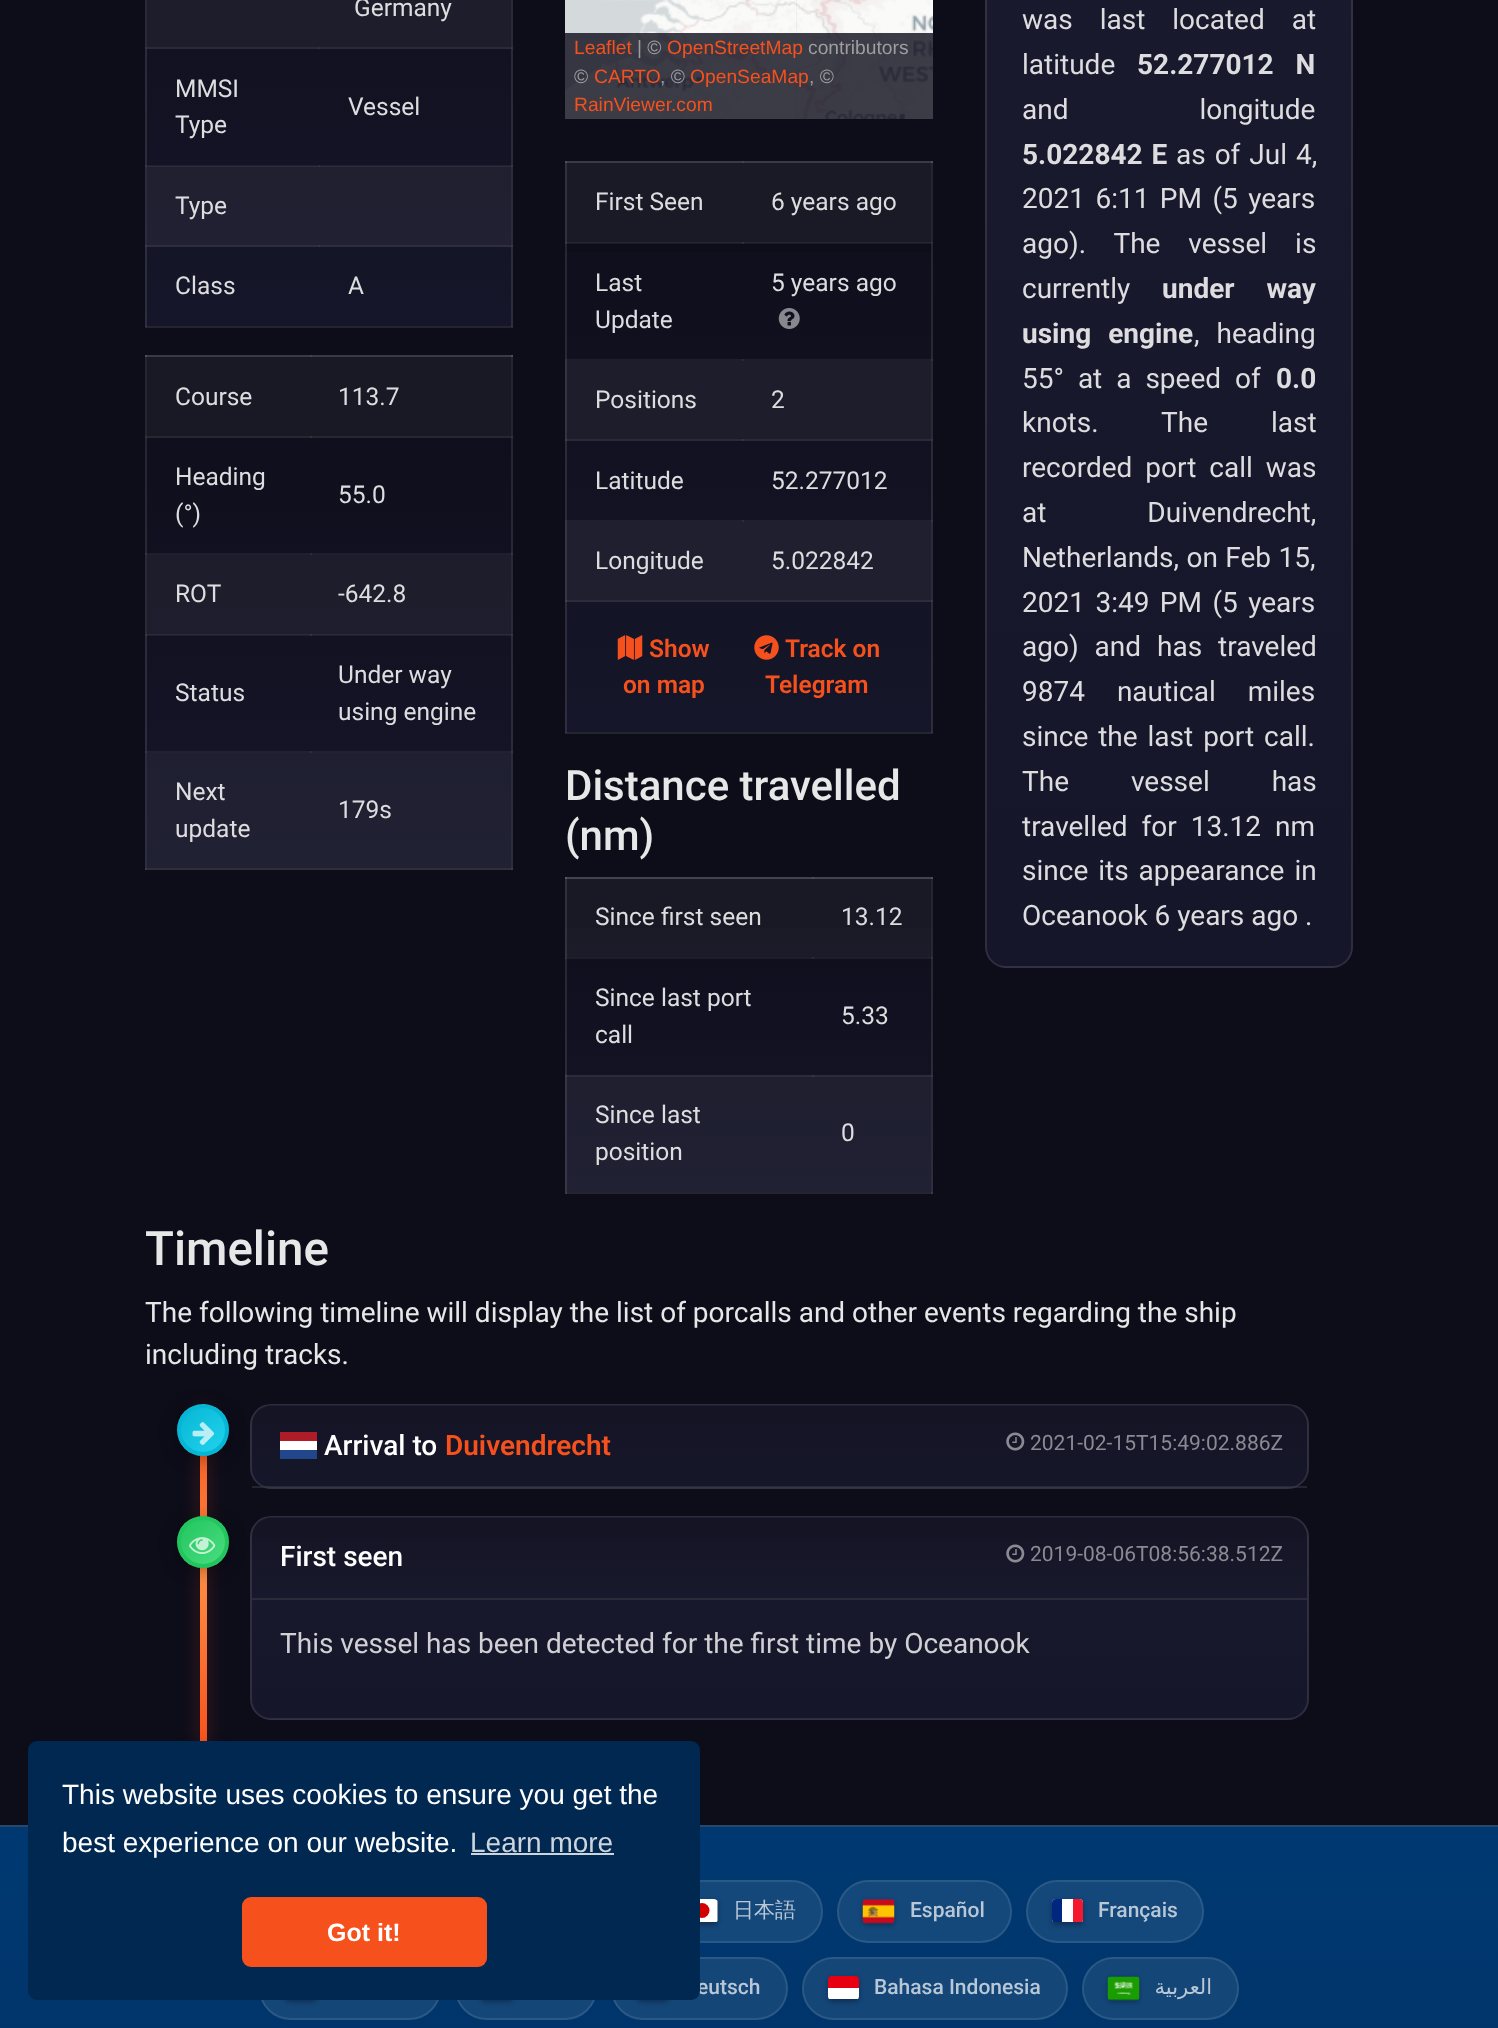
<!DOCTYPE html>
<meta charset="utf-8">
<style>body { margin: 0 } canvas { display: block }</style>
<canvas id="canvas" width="1498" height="2028"></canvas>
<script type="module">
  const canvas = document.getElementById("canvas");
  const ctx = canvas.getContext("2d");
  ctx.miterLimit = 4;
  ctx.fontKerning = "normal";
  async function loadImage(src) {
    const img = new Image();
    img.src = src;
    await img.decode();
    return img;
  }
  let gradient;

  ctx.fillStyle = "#0d0d1a";
  ctx.fillRect(0, 0, 1498, 2028);
  gradient = ctx.createLinearGradient(329, -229, 329, 326);
  gradient.addColorStop(0, "#0d0d1a");
  gradient.addColorStop(1, "#16162a");
  ctx.fillStyle = gradient;
  ctx.fillRect(145, 0, 368, 326);
  gradient = ctx.createLinearGradient(329, -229, 329, 326);
  gradient.addColorStop(0, "#191925");
  gradient.addColorStop(1, "#222235");
  ctx.fillStyle = gradient;
  ctx.fillRect(147, 166, 364, 81);
  ctx.fillStyle = "rgba(255, 255, 255, 0.1)";
  ctx.fillRect(511, 0, 2, 327);
  ctx.fillRect(145, 326, 368, 2);
  ctx.fillRect(145, 0, 2, 327);
  ctx.fillStyle = "#1d1d2c";
  ctx.fillRect(147, 0, 364, 49);
  ctx.font = "24.5px Roboto";
  ctx.fillStyle = "#dddddf";
  ctx.fillText("Germany", 354, 16);
  ctx.fillStyle = "rgba(255, 255, 255, 0.06)";
  ctx.fillRect(319, 47, 194, 2);
  ctx.fillRect(145, 47, 175, 2);
  ctx.fillStyle = "#dddddf";
  ctx.fillText("MMSI", 175, 97);
  ctx.fillText("Type", 175, 133);
  ctx.fillText("Vessel", 348, 115);
  ctx.fillStyle = "rgba(255, 255, 255, 0.06)";
  ctx.fillRect(319, 165, 194, 2);
  ctx.fillRect(145, 165, 175, 2);
  ctx.fillStyle = "#dddddf";
  ctx.fillText("Type", 175, 214);
  ctx.fillStyle = "rgba(255, 255, 255, 0.06)";
  ctx.fillRect(319, 245, 194, 2);
  ctx.fillRect(145, 245, 175, 2);
  ctx.fillStyle = "#dddddf";
  ctx.fillText("Class", 175, 294);
  ctx.fillText("A", 348, 294);
  gradient = ctx.createLinearGradient(329, 357, 329, 868);
  gradient.addColorStop(0, "#0d0d1a");
  gradient.addColorStop(1, "#16162a");
  ctx.fillStyle = gradient;
  ctx.fillRect(145, 437, 368, 431);
  gradient = ctx.createLinearGradient(329, 357, 329, 868);
  gradient.addColorStop(0, "#191925");
  gradient.addColorStop(1, "#222235");
  ctx.fillStyle = gradient;
  ctx.fillRect(147, 555, 364, 80);
  ctx.fillStyle = "#2d2d3f";
  ctx.fillRect(145, 355, 368, 2);
  ctx.fillStyle = "rgba(255, 255, 255, 0.1)";
  ctx.fillRect(511, 355, 2, 515);
  ctx.fillStyle = "rgba(255, 255, 255, 0.05)";
  ctx.fillRect(147, 753, 364, 117);
  ctx.fillStyle = "rgba(255, 255, 255, 0.1)";
  ctx.fillRect(145, 868, 368, 2);
  ctx.fillRect(145, 355, 2, 515);
  ctx.fillStyle = "rgba(255, 255, 255, 0.05)";
  ctx.fillRect(147, 357, 364, 81);
  ctx.fillStyle = "rgba(255, 255, 255, 0.06)";
  ctx.fillRect(310, 355, 203, 2);
  ctx.fillRect(145, 355, 167, 2);
  ctx.fillStyle = "#dddddf";
  ctx.fillText("Course", 175, 405);
  ctx.fillText("113.7", 338, 405);
  ctx.fillStyle = "rgba(255, 255, 255, 0.06)";
  ctx.fillRect(310, 436, 203, 2);
  ctx.fillRect(145, 436, 167, 2);
  ctx.fillStyle = "#dddddf";
  ctx.fillText("Heading", 175, 485);
  ctx.fillText("(°)", 175, 522);
  ctx.fillText("55.0", 338, 503);
  ctx.fillStyle = "rgba(255, 255, 255, 0.06)";
  ctx.fillRect(310, 553, 203, 2);
  ctx.fillRect(145, 553, 167, 2);
  ctx.fillStyle = "#dddddf";
  ctx.fillText("ROT", 175, 602);
  ctx.fillText("-642.8", 338, 602);
  ctx.fillStyle = "rgba(255, 255, 255, 0.06)";
  ctx.fillRect(310, 634, 203, 2);
  ctx.fillRect(145, 634, 167, 2);
  ctx.fillStyle = "#dddddf";
  ctx.fillText("Status", 175, 701);
  ctx.fillText("Under way", 338, 683);
  ctx.fillText("using engine", 338, 720);
  ctx.fillStyle = "rgba(255, 255, 255, 0.06)";
  ctx.fillRect(310, 751, 203, 2);
  ctx.fillRect(145, 751, 167, 2);
  ctx.fillStyle = "#dddddf";
  ctx.fillText("Next", 175, 800);
  ctx.fillText("update", 175, 837);
  ctx.fillText("179s", 338, 818);
  ctx.fillStyle = "#dddddd";
  ctx.fillRect(796, 0, 1, 119);
  ctx.drawImage(await loadImage("img1.png"), 565, 0, 231, 119);
  ctx.drawImage(await loadImage("img2.png"), 796, 0, 137, 119);
  ctx.fillStyle = "rgba(13, 13, 26, 0.8)";
  ctx.fillRect(565, 33, 368, 86);
  ctx.font = "19.25px Liberation Sans";
  ctx.fillStyle = "#f6511d";
  ctx.fillText("Leaflet", 574, 54);
  ctx.fillStyle = "#9d9da2";
  ctx.fillText("| ©", 637, 54);
  ctx.fillStyle = "#f6511d";
  ctx.fillText("OpenStreetMap", 667, 54);
  ctx.fillStyle = "#9d9da2";
  ctx.fillText("contributors", 808, 54);
  ctx.fillText("©", 574, 83);
  ctx.fillStyle = "#f6511d";
  ctx.fillText("CARTO", 594, 83);
  ctx.fillStyle = "#9d9da2";
  ctx.fillText(", ©", 660, 83);
  ctx.fillStyle = "#f6511d";
  ctx.fillText("OpenSeaMap", 690, 83);
  ctx.fillStyle = "#9d9da2";
  ctx.fillText(", ©", 809, 83);
  ctx.fillStyle = "#f6511d";
  ctx.fillText("RainViewer.com", 574, 111);
  gradient = ctx.createLinearGradient(749, 163, 749, 732);
  gradient.addColorStop(0, "#0d0d1a");
  gradient.addColorStop(1, "#16162a");
  ctx.fillStyle = gradient;
  ctx.fillRect(565, 252, 368, 480);
  ctx.fillStyle = "#2d2d3f";
  ctx.fillRect(565, 161, 368, 2);
  ctx.fillStyle = "rgba(255, 255, 255, 0.1)";
  ctx.fillRect(931, 161, 2, 572);
  ctx.fillRect(565, 732, 368, 2);
  ctx.fillStyle = "#1a1a27";
  ctx.fillRect(565, 163, 366, 80);
  ctx.fillStyle = "#1d1d2c";
  ctx.fillRect(565, 361, 366, 80);
  ctx.fillStyle = "#1f1f30";
  ctx.fillRect(565, 522, 366, 80);
  ctx.fillStyle = "rgba(255, 255, 255, 0.1)";
  ctx.fillRect(565, 161, 2, 572);
  ctx.fillStyle = "rgba(255, 255, 255, 0.06)";
  ctx.fillRect(742, 161, 191, 2);
  ctx.fillRect(565, 161, 179, 2);
  ctx.font = "24.5px Roboto";
  ctx.fillStyle = "#dddddf";
  ctx.fillText("First Seen", 595, 210);
  ctx.fillText("6 years ago", 771, 210);
  ctx.fillStyle = "rgba(255, 255, 255, 0.06)";
  ctx.fillRect(742, 242, 191, 2);
  ctx.fillRect(565, 242, 179, 2);
  ctx.fillStyle = "#dddddf";
  ctx.fillText("Last", 595, 291);
  ctx.fillText("Update", 595, 328);
  ctx.fillText("5 years ago", 771, 291);
  ctx.drawImage(await loadImage("img3.png"), 778, 308, 22, 21);
  ctx.fillStyle = "rgba(255, 255, 255, 0.06)";
  ctx.fillRect(742, 359, 191, 2);
  ctx.fillRect(565, 359, 179, 2);
  ctx.fillStyle = "#dddddf";
  ctx.fillText("Positions", 595, 408);
  ctx.fillText("2", 771, 408);
  ctx.fillStyle = "rgba(255, 255, 255, 0.06)";
  ctx.fillRect(742, 439, 191, 2);
  ctx.fillRect(565, 439, 179, 2);
  ctx.fillStyle = "#dddddf";
  ctx.fillText("Latitude", 595, 489);
  ctx.fillText("52.277012", 771, 489);
  ctx.fillStyle = "rgba(255, 255, 255, 0.06)";
  ctx.fillRect(742, 520, 191, 2);
  ctx.fillRect(565, 520, 179, 2);
  ctx.fillStyle = "#dddddf";
  ctx.fillText("Longitude", 595, 569);
  ctx.fillText("5.022842", 771, 569);
  ctx.fillStyle = "rgba(255, 255, 255, 0.06)";
  ctx.fillRect(565, 600, 368, 2);
  ctx.drawImage(await loadImage("img4.png"), 617, 635, 26, 25);
  ctx.font = "600 24.5px Roboto";
  ctx.fillStyle = "#f6511d";
  ctx.fillText("Show", 649, 657);
  ctx.fillText("on map", 623, 693);
  ctx.drawImage(await loadImage("img5.png"), 754, 635, 25, 25);
  ctx.fillText("Track on", 785, 657);
  ctx.fillText("Telegram", 765, 693);
  ctx.font = "500 42px Roboto";
  ctx.fillStyle = "#e7e7e8";
  ctx.fillText("Distance travelled", 565, 800);
  ctx.fillText("(nm)", 565, 850);
  gradient = ctx.createLinearGradient(749, 565, 749, 879);
  gradient.addColorStop(0, "#0d0d1a");
  gradient.addColorStop(1, "#16162a");
  ctx.fillStyle = gradient;
  ctx.fillRect(565, 877, 368, 2);
  gradient = ctx.createLinearGradient(749, 879, 749, 1192);
  gradient.addColorStop(0, "#0d0d1a");
  gradient.addColorStop(1, "#16162a");
  ctx.fillStyle = gradient;
  ctx.fillRect(565, 928, 368, 264);
  ctx.fillStyle = "rgba(255, 255, 255, 0.05)";
  ctx.fillRect(565, 877, 366, 80);
  ctx.fillStyle = "rgba(255, 255, 255, 0.1)";
  ctx.fillRect(565, 877, 368, 2);
  ctx.fillRect(931, 877, 2, 317);
  ctx.fillRect(565, 1192, 368, 2);
  ctx.fillStyle = "rgba(255, 255, 255, 0.05)";
  ctx.fillRect(565, 1075, 366, 117);
  ctx.fillStyle = "rgba(255, 255, 255, 0.1)";
  ctx.fillRect(565, 877, 2, 317);
  ctx.fillStyle = "rgba(255, 255, 255, 0.06)";
  ctx.fillRect(812, 877, 121, 2);
  ctx.fillRect(565, 877, 249, 2);
  ctx.font = "24.5px Roboto";
  ctx.fillStyle = "#dddddf";
  ctx.fillText("Since first seen", 595, 925);
  ctx.fillText("13.12", 841, 925);
  ctx.fillStyle = "rgba(255, 255, 255, 0.06)";
  ctx.fillRect(812, 957, 121, 2);
  ctx.fillRect(565, 957, 249, 2);
  ctx.fillStyle = "#dddddf";
  ctx.fillText("Since last port", 595, 1006);
  ctx.fillText("call", 595, 1043);
  ctx.fillText("5.33", 841, 1024);
  ctx.fillStyle = "rgba(255, 255, 255, 0.06)";
  ctx.fillRect(812, 1075, 121, 2);
  ctx.fillRect(565, 1075, 249, 2);
  ctx.fillStyle = "#dddddf";
  ctx.fillText("Since last", 595, 1123);
  ctx.fillText("position", 595, 1160);
  ctx.fillText("0", 841, 1141);
  ctx.save();
  ctx.beginPath();
  ctx.roundRect(985, -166, 368, 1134, 21);
  ctx.clip();
  gradient = ctx.createLinearGradient(1169, -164, 1169, 966);
  gradient.addColorStop(0, "#1a1a2e");
  gradient.addColorStop(1, "#16162a");
  ctx.fillStyle = gradient;
  ctx.fillRect(985, 0, 368, 966);
  gradient = ctx.createLinearGradient(1169, 966, 1169, 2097);
  gradient.addColorStop(0, "#1a1a2e");
  gradient.addColorStop(1, "#16162a");
  ctx.fillStyle = gradient;
  ctx.fillRect(997, 966, 344, 2);
  ctx.restore();
  ctx.beginPath();
  ctx.roundRect(986, -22, 366, 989, 20);
  ctx.strokeStyle = "rgba(255, 255, 255, 0.1)";
  ctx.lineWidth = 2;
  ctx.stroke();
  ctx.wordSpacing = "20px";
  ctx.font = "28px Roboto";
  ctx.fillText("was last located at", 1022, 29);
  ctx.wordSpacing = "0px";
  ctx.fillText("latitude", 1022, 74);
  ctx.wordSpacing = "15px";
  ctx.font = "bold 28px Roboto";
  ctx.fillText("52.277012 N", 1137, 74);
  ctx.wordSpacing = "124px";
  ctx.font = "28px Roboto";
  ctx.fillText("and longitude", 1022, 119);
  ctx.wordSpacing = "2px";
  ctx.font = "bold 28px Roboto";
  ctx.fillText("5.022842 E", 1022, 164);
  ctx.font = "28px Roboto";
  ctx.fillText("as of Jul 4,", 1176, 164);
  ctx.wordSpacing = "3.5px";
  ctx.fillText("2021 6:11 PM (5 years", 1022, 208);
  ctx.wordSpacing = "21px";
  ctx.fillText("ago). The vessel is", 1022, 253);
  ctx.wordSpacing = "0px";
  ctx.fillText("currently", 1022, 298);
  ctx.wordSpacing = "25px";
  ctx.font = "bold 28px Roboto";
  ctx.fillText("under way", 1162, 298);
  ctx.wordSpacing = "10px";
  ctx.fillText("using engine", 1022, 343);
  ctx.font = "28px Roboto";
  ctx.fillText(", heading", 1194, 343);
  ctx.wordSpacing = "7px";
  ctx.fillText("55° at a speed of", 1022, 388);
  ctx.wordSpacing = "0px";
  ctx.font = "bold 28px Roboto";
  ctx.fillText("0.0", 1276, 388);
  ctx.wordSpacing = "56px";
  ctx.font = "28px Roboto";
  ctx.fillText("knots. The last", 1022, 432);
  ctx.wordSpacing = "6px";
  ctx.fillText("recorded port call was", 1022, 477);
  ctx.wordSpacing = "94px";
  ctx.fillText("at Duivendrecht,", 1022, 522);
  ctx.wordSpacing = "0.5px";
  ctx.fillText("Netherlands, on Feb 15,", 1022, 567);
  ctx.wordSpacing = "3.5px";
  ctx.fillText("2021 3:49 PM (5 years", 1022, 612);
  ctx.wordSpacing = "9px";
  ctx.fillText("ago) and has traveled", 1022, 656);
  ctx.wordSpacing = "25px";
  ctx.fillText("9874 nautical miles", 1022, 701);
  ctx.wordSpacing = "3px";
  ctx.fillText("since the last port call.", 1022, 746);
  ctx.wordSpacing = "55px";
  ctx.fillText("The vessel has", 1022, 791);
  ctx.wordSpacing = "7px";
  ctx.fillText("travelled for 13.12 nm", 1022, 836);
  ctx.wordSpacing = "3px";
  ctx.fillText("since its appearance in", 1022, 880);
  ctx.wordSpacing = "0px";
  ctx.fillText("Oceanook 6 years ago .", 1022, 925);
  ctx.font = "500 47.5px Roboto";
  ctx.fillStyle = "#e7e7e8";
  ctx.fillText("Timeline", 145, 1265);
  ctx.font = "28px Roboto";
  ctx.fillText("The following timeline will display the list of porcalls and other events regarding the ship", 145, 1322);
  ctx.fillText("including tracks.", 145, 1364);
  ctx.fillStyle = "rgba(246, 81, 29, 0.3)";
  ctx.filter = "blur(9px)";
  ctx.beginPath();
  ctx.roundRect(200, 1404, 7, 343, 3.5);
  ctx.fill();
  ctx.filter = "none";
  gradient = ctx.createLinearGradient(203, 1404, 203, 1747);
  gradient.addColorStop(0, "#f6511d");
  gradient.addColorStop(0.5, "#ff8c42");
  gradient.addColorStop(1, "#f6511d");
  ctx.fillStyle = gradient;
  ctx.beginPath();
  ctx.roundRect(200, 1404, 7, 343, 3.5);
  ctx.fill();
  ctx.fillStyle = "rgba(0, 0, 0, 0.3)";
  ctx.filter = "blur(9px)";
  ctx.beginPath();
  ctx.roundRect(177, 1407, 52, 53, 26);
  ctx.fill();
  ctx.filter = "none";
  ctx.save();
  ctx.beginPath();
  ctx.roundRect(177, 1404, 52, 52, 26);
  ctx.clip();
  gradient = ctx.createLinearGradient(180, 1407, 226, 1453);
  gradient.addColorStop(0, "#06b6d4");
  gradient.addColorStop(1, "#22d3ee");
  ctx.fillStyle = gradient;
  ctx.fillRect(180, 1407, 46, 46);
  ctx.restore();
  ctx.beginPath();
  ctx.arc(203, 1430, 24, 0, Math.PI * 2);
  ctx.strokeStyle = "#06b6d4";
  ctx.lineWidth = 4;
  ctx.stroke();
  ctx.drawImage(await loadImage("img6.png"), 192, 1422, 22, 23);
  ctx.save();
  ctx.beginPath();
  ctx.roundRect(250, 1404, 1059, 85, 21);
  ctx.clip();
  gradient = ctx.createLinearGradient(780, 1323, 780, 1405);
  gradient.addColorStop(0, "#1a1a2e");
  gradient.addColorStop(1, "#16162a");
  ctx.fillStyle = gradient;
  ctx.fillRect(264, 1404, 1031, 1);
  gradient = ctx.createLinearGradient(780, 1405, 780, 1488);
  gradient.addColorStop(0, "#1a1a2e");
  gradient.addColorStop(1, "#16162a");
  ctx.fillStyle = gradient;
  ctx.fillRect(250, 1405, 1059, 83);
  gradient = ctx.createLinearGradient(780, 1488, 780, 1570);
  gradient.addColorStop(0, "#1a1a2e");
  gradient.addColorStop(1, "#16162a");
  ctx.fillStyle = gradient;
  ctx.fillRect(264, 1488, 1031, 1);
  ctx.restore();
  ctx.beginPath();
  ctx.roundRect(251, 1405, 1057, 83, 20);
  ctx.strokeStyle = "rgba(255, 255, 255, 0.1)";
  ctx.lineWidth = 2;
  ctx.stroke();
  gradient = ctx.createLinearGradient(780, 1405, 780, 1486);
  gradient.addColorStop(0, "rgba(13, 13, 26, 0.5)");
  gradient.addColorStop(1, "rgba(13, 13, 26, 0)");
  ctx.fillStyle = gradient;
  ctx.beginPath();
  ctx.roundRect(252, 1405, 1055, 81, [19, 19, 0, 0]);
  ctx.fill();
  gradient = ctx.createLinearGradient(780, 1486, 780, 1566);
  gradient.addColorStop(0, "rgba(13, 13, 26, 0.5)");
  gradient.addColorStop(1, "rgba(13, 13, 26, 0)");
  ctx.fillStyle = gradient;
  ctx.fillRect(252, 1486, 1055, 2);
  ctx.fillStyle = "rgba(255, 255, 255, 0.1)";
  ctx.fillRect(252, 1486, 1055, 2);
  ctx.fillStyle = "#ffffff";
  ctx.fillRect(280, 1441, 37, 9);
  ctx.fillStyle = "#21468b";
  ctx.fillRect(280, 1450, 37, 9);
  ctx.fillStyle = "#ae1c28";
  ctx.fillRect(280, 1432, 37, 9);
  ctx.font = "500 28px Roboto";
  ctx.fillStyle = "#ffffff";
  ctx.fillText("Arrival to", 324, 1455);
  ctx.font = "600 28px Roboto";
  ctx.fillStyle = "#f6511d";
  ctx.fillText("Duivendrecht", 445, 1455);
  ctx.drawImage(await loadImage("img7.png"), 1006, 1432, 19, 19);
  ctx.font = "21px Roboto";
  ctx.fillStyle = "#8a8a93";
  ctx.fillText("2021-02-15T15:49:02.886Z", 1030, 1450);
  ctx.fillStyle = "rgba(0, 0, 0, 0.3)";
  ctx.filter = "blur(9px)";
  ctx.beginPath();
  ctx.roundRect(177, 1519, 52, 53, 26);
  ctx.fill();
  ctx.filter = "none";
  ctx.save();
  ctx.beginPath();
  ctx.roundRect(177, 1516, 52, 52, 26);
  ctx.clip();
  gradient = ctx.createLinearGradient(180, 1519, 226, 1565);
  gradient.addColorStop(0, "#22c55e");
  gradient.addColorStop(1, "#4ade80");
  ctx.fillStyle = gradient;
  ctx.fillRect(180, 1519, 46, 46);
  ctx.restore();
  ctx.beginPath();
  ctx.arc(203, 1542, 24, 0, Math.PI * 2);
  ctx.strokeStyle = "#22c55e";
  ctx.lineWidth = 4;
  ctx.stroke();
  ctx.drawImage(await loadImage("img8.png"), 189, 1537, 27, 17);
  ctx.save();
  ctx.beginPath();
  ctx.roundRect(250, 1516, 1059, 204, 21);
  ctx.clip();
  gradient = ctx.createLinearGradient(780, 1316, 780, 1517);
  gradient.addColorStop(0, "#1a1a2e");
  gradient.addColorStop(1, "#16162a");
  ctx.fillStyle = gradient;
  ctx.fillRect(264, 1516, 1031, 1);
  gradient = ctx.createLinearGradient(780, 1517, 780, 1719);
  gradient.addColorStop(0, "#1a1a2e");
  gradient.addColorStop(1, "#16162a");
  ctx.fillStyle = gradient;
  ctx.fillRect(250, 1517, 1059, 202);
  gradient = ctx.createLinearGradient(780, 1719, 780, 1920);
  gradient.addColorStop(0, "#1a1a2e");
  gradient.addColorStop(1, "#16162a");
  ctx.fillStyle = gradient;
  ctx.fillRect(264, 1719, 1031, 1);
  ctx.restore();
  ctx.beginPath();
  ctx.roundRect(251, 1517, 1057, 202, 20);
  ctx.strokeStyle = "rgba(255, 255, 255, 0.1)";
  ctx.lineWidth = 2;
  ctx.stroke();
  gradient = ctx.createLinearGradient(780, 1517, 780, 1598);
  gradient.addColorStop(0, "rgba(13, 13, 26, 0.5)");
  gradient.addColorStop(1, "rgba(13, 13, 26, 0)");
  ctx.fillStyle = gradient;
  ctx.beginPath();
  ctx.roundRect(252, 1517, 1055, 81, [19, 19, 0, 0]);
  ctx.fill();
  ctx.fillStyle = "#2b2b39";
  ctx.fillRect(252, 1598, 1055, 2);
  ctx.font = "500 28px Roboto";
  ctx.fillStyle = "#ffffff";
  ctx.fillText("First seen", 280, 1566);
  ctx.drawImage(await loadImage("img9.png"), 1006, 1544, 19, 19);
  ctx.font = "21px Roboto";
  ctx.fillStyle = "#8a8a93";
  ctx.fillText("2019-08-06T08:56:38.512Z", 1030, 1561);
  ctx.font = "28px Roboto";
  ctx.fillStyle = "#d1d1d5";
  ctx.fillText("This vessel has been detected for the first time by Oceanook", 280, 1653);
  gradient = ctx.createLinearGradient(749, 1827, 749, 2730);
  gradient.addColorStop(0, "#003972");
  gradient.addColorStop(1, "#002851");
  ctx.fillStyle = gradient;
  ctx.fillRect(0, 1827, 1498, 201);
  ctx.fillStyle = "#26486b";
  ctx.fillRect(0, 1825, 1498, 2);
  ctx.fillStyle = "rgba(0, 0, 0, 0.3)";
  ctx.filter = "blur(9px)";
  ctx.beginPath();
  ctx.roundRect(177, 1750, 52, 53, 26);
  ctx.fill();
  ctx.filter = "none";
  ctx.fillStyle = "#14477a";
  ctx.beginPath();
  ctx.roundRect(660, 1880, 163, 63, 31.5);
  ctx.fill();
  ctx.beginPath();
  ctx.roundRect(661, 1881, 161, 61, 30.5);
  ctx.stroke();
  ctx.fillStyle = "rgba(0, 0, 0, 0.3)";
  ctx.filter = "blur(2.5px)";
  ctx.beginPath();
  ctx.roundRect(686, 1901, 32, 24, 4);
  ctx.fill();
  ctx.filter = "none";
  ctx.save();
  ctx.beginPath();
  ctx.rect(686, 1899, 32, 23);
  ctx.clip();
  ctx.fillStyle = "#ffffff";
  ctx.beginPath();
  ctx.moveTo(690, 1899);
  ctx.bezierCurveTo(688, 1899, 686, 1901, 686, 1903);
  ctx.lineTo(686, 1919);
  ctx.bezierCurveTo(686, 1920.5, 686.5, 1921.5, 688, 1922.5);
  ctx.lineTo(716, 1922.5);
  ctx.lineTo(717.5, 1921);
  ctx.lineTo(717.5, 1901);
  ctx.bezierCurveTo(717, 1900, 715.5, 1899, 714, 1899);
  ctx.closePath();
  ctx.fill();
  ctx.restore();
  ctx.fillStyle = "#d30000";
  ctx.beginPath();
  ctx.arc(702, 1910.5, 7.5, 0, Math.PI * 2);
  ctx.fill();
  ctx.fillStyle = "#144678";
  ctx.beginPath();
  ctx.roundRect(259, 1957, 182, 63, 31.5);
  ctx.fill();
  ctx.beginPath();
  ctx.roundRect(260, 1958, 180, 61, 30.5);
  ctx.stroke();
  ctx.fillStyle = "rgba(0, 0, 0, 0.3)";
  ctx.filter = "blur(2.5px)";
  ctx.beginPath();
  ctx.roundRect(285, 1978, 32, 24, 4);
  ctx.fill();
  ctx.filter = "none";
  ctx.fillStyle = "#144678";
  ctx.beginPath();
  ctx.roundRect(455, 1957, 142, 63, 31.5);
  ctx.fill();
  ctx.beginPath();
  ctx.roundRect(456, 1958, 140, 61, 30.5);
  ctx.stroke();
  ctx.fillStyle = "rgba(0, 0, 0, 0.3)";
  ctx.filter = "blur(2.5px)";
  ctx.beginPath();
  ctx.roundRect(481, 1978, 32, 24, 4);
  ctx.fill();
  ctx.filter = "none";
  ctx.fillStyle = "#144678";
  ctx.beginPath();
  ctx.roundRect(611, 1957, 177, 63, 31.5);
  ctx.fill();
  ctx.beginPath();
  ctx.roundRect(612, 1958, 175, 61, 30.5);
  ctx.stroke();
  ctx.fillStyle = "rgba(0, 0, 0, 0.3)";
  ctx.filter = "blur(2.5px)";
  ctx.beginPath();
  ctx.roundRect(637, 1978, 32, 24, 4);
  ctx.fill();
  ctx.filter = "none";
  ctx.font = "500 21px Roboto";
  ctx.fillStyle = "#b9c8d7";
  ctx.fillText("eutsch", 697, 1994);
  ctx.fillStyle = "#002851";
  ctx.beginPath();
  ctx.roundRect(28, 1741, 672, 259, 9);
  ctx.fill();
  ctx.font = "28px Liberation Sans";
  ctx.fillStyle = "#ffffff";
  ctx.fillText("This website uses cookies to ensure you get the", 62, 1804);
  ctx.fillText("best experience on our website.", 62, 1852);
  ctx.fillStyle = "#ccd4dc";
  ctx.fillText("Learn more", 470, 1852);
  ctx.fillRect(471, 1853, 143, 2);
  ctx.fillStyle = "#f6511d";
  ctx.beginPath();
  ctx.roundRect(242, 1897, 245, 70, 9);
  ctx.fill();
  ctx.font = "bold 25px Liberation Sans";
  ctx.fillStyle = "#ffffff";
  ctx.fillText("Got it!", 327, 1941);
  ctx.font = "500 21px WenQuanYi Zen Hei";
  ctx.fillStyle = "#b9c8d7";
  ctx.fillText("日本語", 733, 1917);
  ctx.fillStyle = "#14477a";
  ctx.beginPath();
  ctx.roundRect(837, 1880, 175, 63, 31.5);
  ctx.fill();
  ctx.beginPath();
  ctx.roundRect(838, 1881, 173, 61, 30.5);
  ctx.stroke();
  ctx.fillStyle = "rgba(0, 0, 0, 0.3)";
  ctx.filter = "blur(2.5px)";
  ctx.beginPath();
  ctx.roundRect(863, 1901, 31, 24, 4);
  ctx.fill();
  ctx.filter = "none";
  ctx.drawImage(await loadImage("img10.png"), 862, 1899, 33, 25);
  ctx.font = "500 21px Roboto";
  ctx.fillStyle = "#b9c8d7";
  ctx.fillText("Español", 910, 1917);
  ctx.fillStyle = "#14477a";
  ctx.beginPath();
  ctx.roundRect(1026, 1880, 178, 63, 31.5);
  ctx.fill();
  ctx.beginPath();
  ctx.roundRect(1027, 1881, 176, 61, 30.5);
  ctx.stroke();
  ctx.fillStyle = "rgba(0, 0, 0, 0.3)";
  ctx.filter = "blur(2.5px)";
  ctx.beginPath();
  ctx.roundRect(1052, 1901, 31, 24, 4);
  ctx.fill();
  ctx.filter = "none";
  ctx.save();
  ctx.beginPath();
  ctx.rect(1052, 1899, 31, 23);
  ctx.clip();
  ctx.fillStyle = "#ffffff";
  ctx.beginPath();
  ctx.roundRect(1052, 1899, 31, 24, 4);
  ctx.fill();
  ctx.fillStyle = "#00267f";
  ctx.beginPath();
  ctx.roundRect(1052, 1899, 10, 24, [4, 0, 0, 4]);
  ctx.fill();
  ctx.fillStyle = "#f31830";
  ctx.beginPath();
  ctx.roundRect(1073, 1899, 10, 24, [0, 4, 4, 0]);
  ctx.fill();
  ctx.restore();
  ctx.fillStyle = "#b9c8d7";
  ctx.fillText("Français", 1098, 1917);
  ctx.fillStyle = "#144678";
  ctx.beginPath();
  ctx.roundRect(802, 1957, 266, 63, 31.5);
  ctx.fill();
  ctx.beginPath();
  ctx.roundRect(803, 1958, 264, 61, 30.5);
  ctx.stroke();
  ctx.fillStyle = "rgba(0, 0, 0, 0.3)";
  ctx.filter = "blur(2.5px)";
  ctx.beginPath();
  ctx.roundRect(828, 1978, 31, 24, 4);
  ctx.fill();
  ctx.filter = "none";
  ctx.fillStyle = "#e70011";
  ctx.beginPath();
  ctx.roundRect(828, 1976, 31, 12, [4, 4, 0, 0]);
  ctx.fill();
  ctx.save();
  ctx.beginPath();
  ctx.rect(828, 1976, 31, 23);
  ctx.clip();
  ctx.fillStyle = "#ffffff";
  ctx.beginPath();
  ctx.roundRect(828, 1988, 31, 12, [0, 0, 4, 4]);
  ctx.fill();
  ctx.restore();
  ctx.fillStyle = "#b9c8d7";
  ctx.fillText("Bahasa Indonesia", 874, 1994);
  ctx.fillStyle = "#144678";
  ctx.beginPath();
  ctx.roundRect(1082, 1957, 157, 63, 31.5);
  ctx.fill();
  ctx.beginPath();
  ctx.roundRect(1083, 1958, 155, 61, 30.5);
  ctx.stroke();
  ctx.fillStyle = "rgba(0, 0, 0, 0.3)";
  ctx.filter = "blur(2.5px)";
  ctx.beginPath();
  ctx.roundRect(1108, 1978, 31, 24, 4);
  ctx.fill();
  ctx.filter = "none";
  ctx.drawImage(await loadImage("img11.png"), 1107, 1976, 33, 25);
  ctx.direction = "rtl";
  ctx.font = "21px DejaVu Sans";
  ctx.fillStyle = "#b9c8d7";
  ctx.fillText("العربية", 1212, 1994);
</script>
